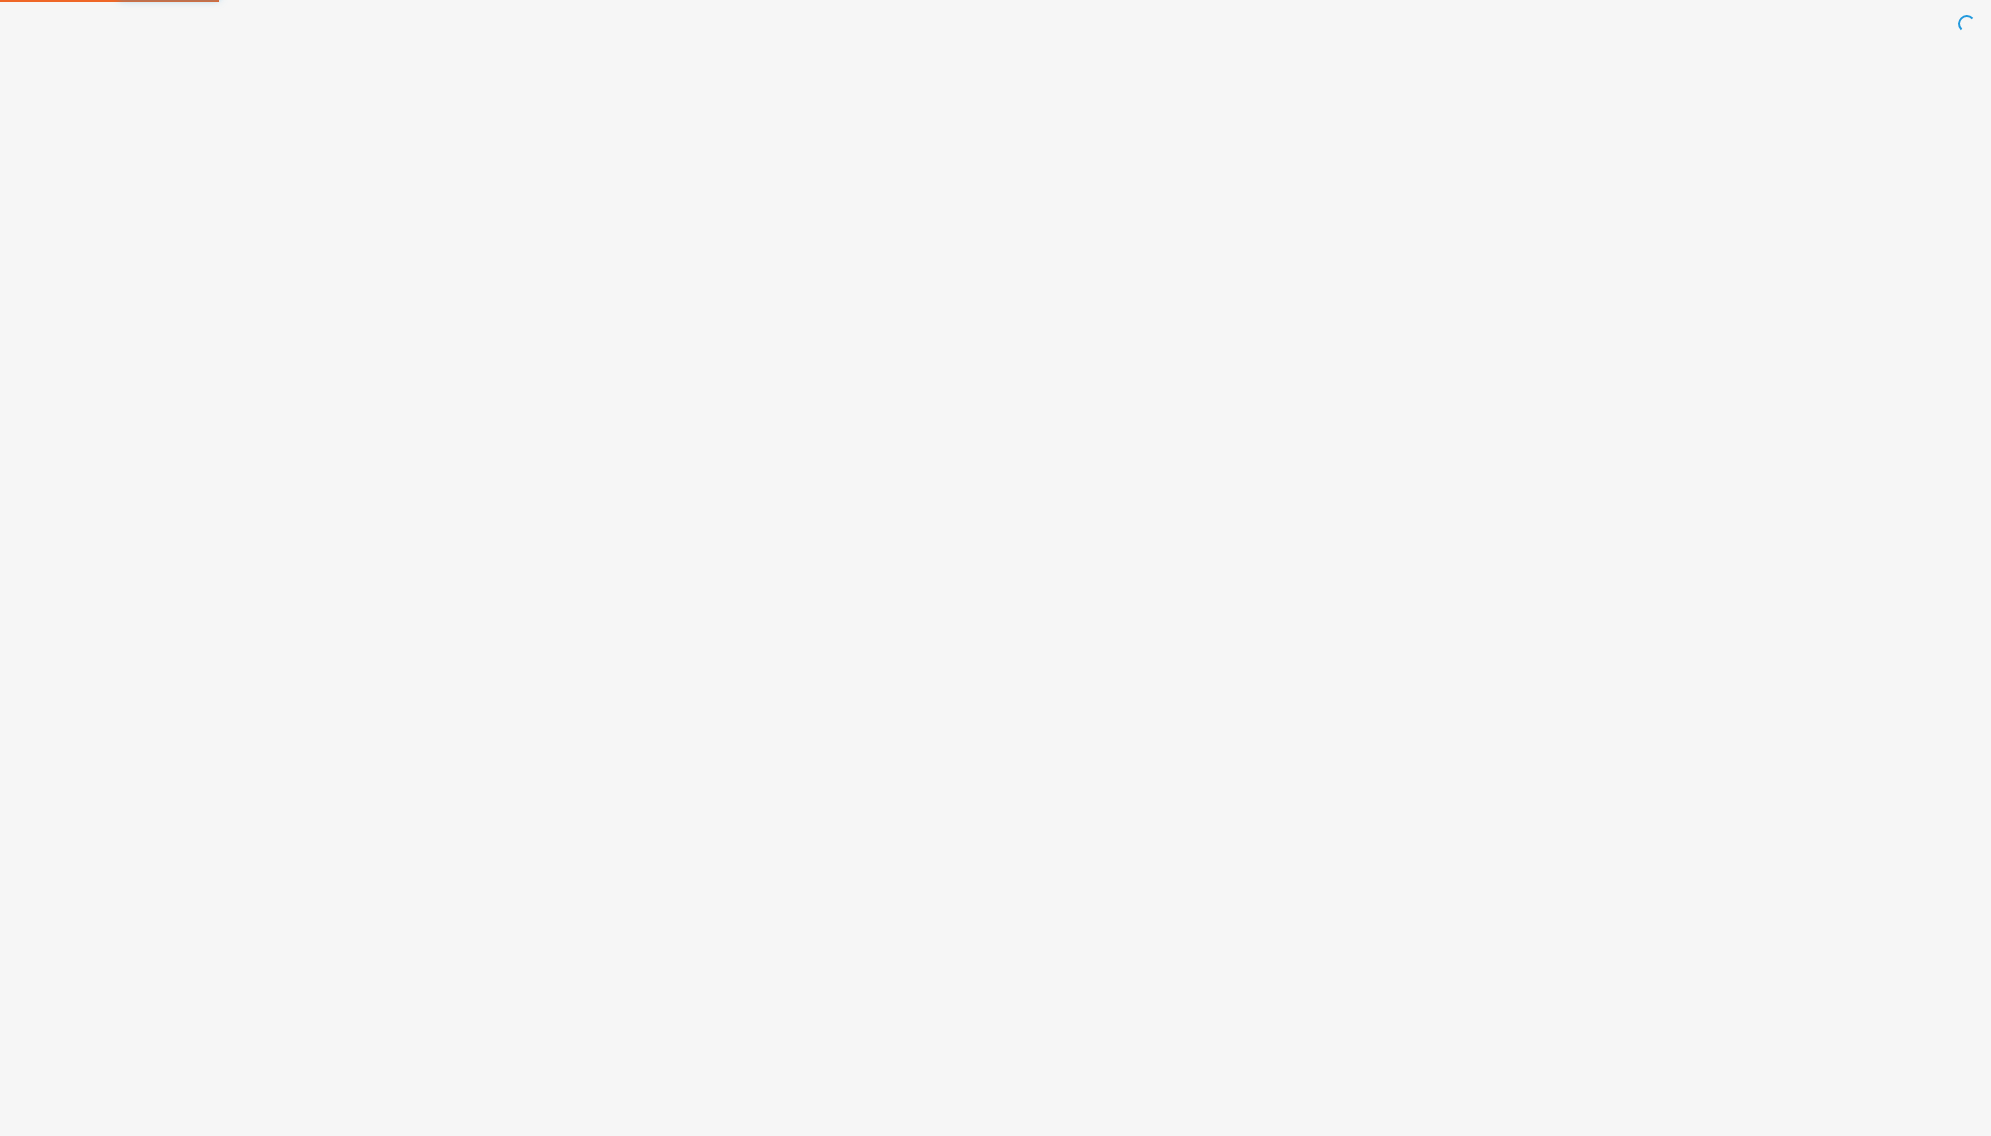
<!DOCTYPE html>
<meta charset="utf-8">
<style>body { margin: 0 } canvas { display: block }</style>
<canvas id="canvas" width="1991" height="1136"></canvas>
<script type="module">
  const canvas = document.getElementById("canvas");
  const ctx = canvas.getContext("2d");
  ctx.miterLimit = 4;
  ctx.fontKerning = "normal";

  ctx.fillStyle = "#f6f6f6";
  ctx.fillRect(0, 0, 1991, 1136);
  ctx.fillStyle = "#ef6727";
  ctx.fillRect(0, 0, 219, 2);
  ctx.fillStyle = "#2299dd";
  ctx.filter = "blur(2.5px)";
  ctx.beginPath();
  ctx.rect(119, -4, 100, 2);
  ctx.fill();
  ctx.filter = "none";
  ctx.filter = "blur(5px)";
  ctx.beginPath();
  ctx.rect(119, -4, 100, 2);
  ctx.fill();
  ctx.filter = "none";
  ctx.beginPath();
  ctx.moveTo(1961.5, 29.5);
  ctx.bezierCurveTo(1954, 22, 1965, 11, 1972.5, 18.5);
  ctx.strokeStyle = "#2299dd";
  ctx.lineWidth = 2;
  ctx.stroke();
</script>
